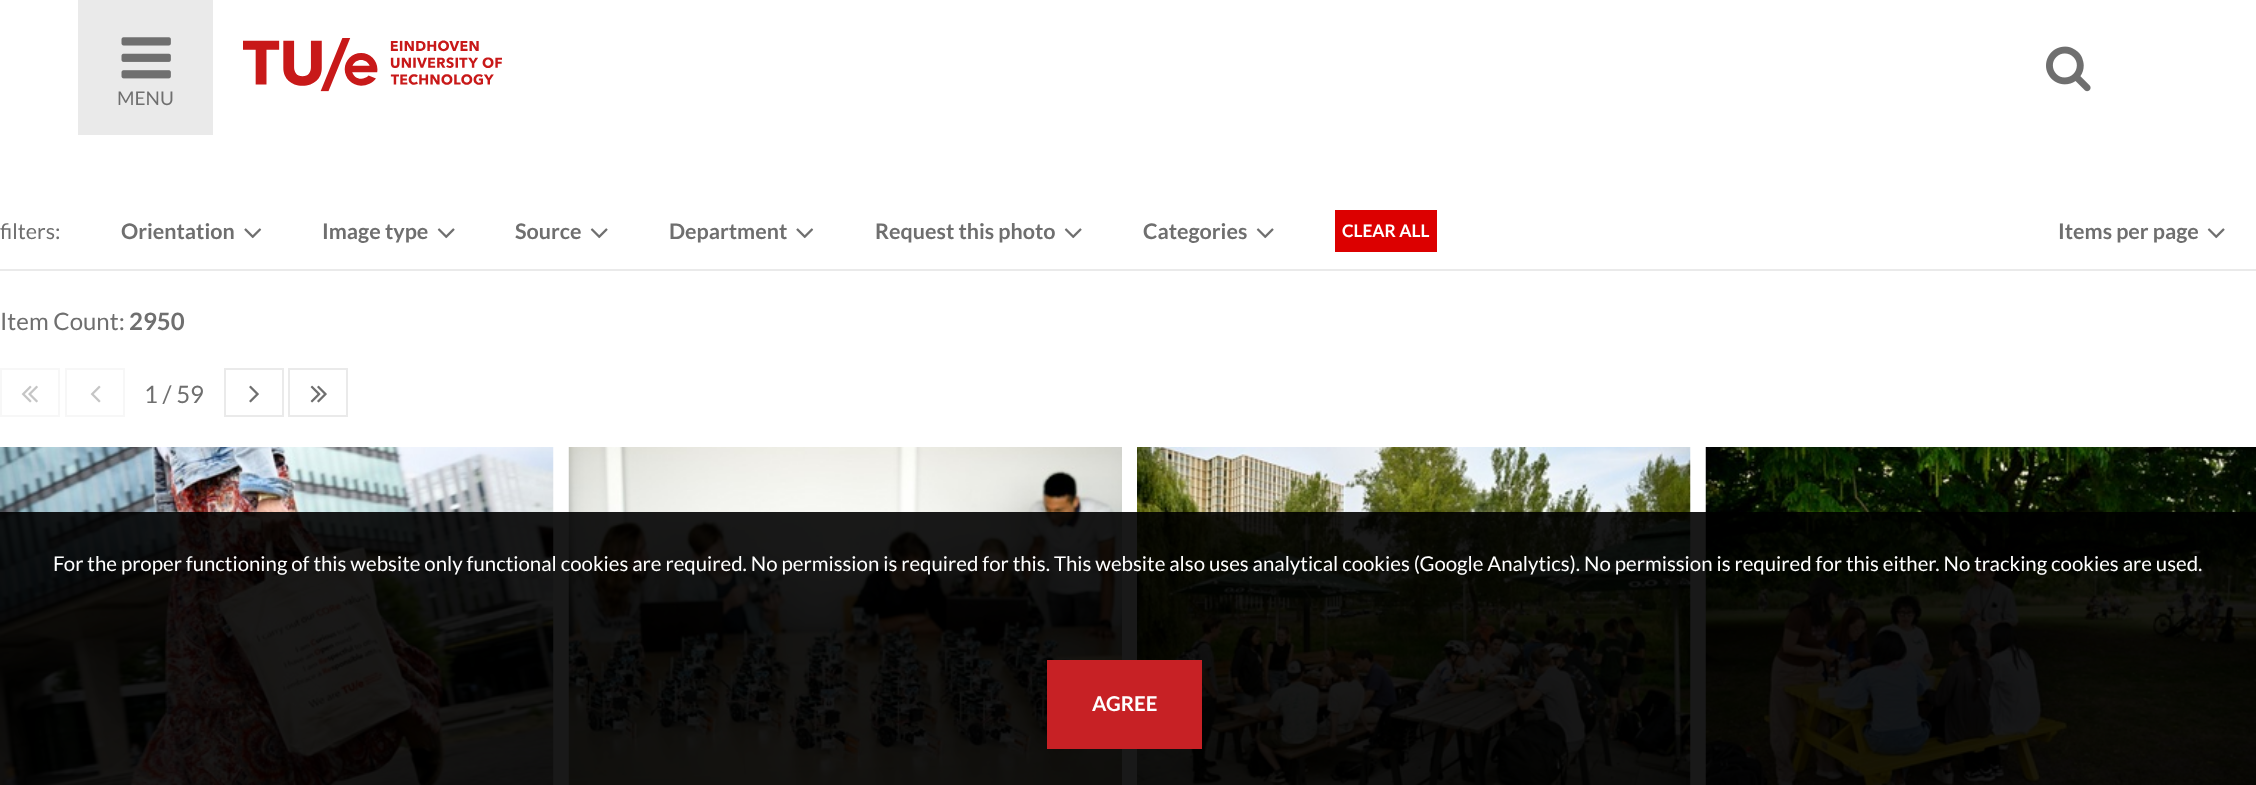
<!DOCTYPE html>
<meta charset="utf-8">
<style>body { margin: 0 } canvas { display: block }</style>
<canvas id="canvas" width="2256" height="785"></canvas>
<script type="module">
  const canvas = document.getElementById("canvas");
  const ctx = canvas.getContext("2d");
  ctx.miterLimit = 4;
  ctx.fontKerning = "normal";
  async function loadImage(src) {
    const img = new Image();
    img.src = src;
    await img.decode();
    return img;
  }

  ctx.fillStyle = "#ffffff";
  ctx.fillRect(0, 0, 2256, 785);
  ctx.drawImage(await loadImage("img1.png"), 243, 38, 259, 54);
  ctx.drawImage(await loadImage("img2.png"), 2046, 46, 45, 46);
  ctx.fillStyle = "#eaeaea";
  ctx.fillRect(78, 0, 135, 135);
  ctx.drawImage(await loadImage("img3.png"), 121, 37, 50, 42);
  ctx.font = "19px Lato";
  ctx.fillStyle = "#6f6f6f";
  ctx.fillText("MENU", 117, 105);
  ctx.fillStyle = "#eaeaea";
  ctx.fillRect(0, 269, 2256, 2);
  ctx.font = "21.5px Lato";
  ctx.fillStyle = "#6f6f6f";
  ctx.fillText("filters:", 0, 239);
  ctx.font = "bold 21.5px Lato";
  ctx.fillText("Orientation", 121, 239);
  ctx.drawImage(await loadImage("img4.png"), 244, 228, 18, 11);
  ctx.fillText("Image type", 322, 239);
  ctx.drawImage(await loadImage("img5.png"), 437, 228, 18, 11);
  ctx.fillText("Source", 515, 239);
  ctx.drawImage(await loadImage("img5.png"), 590, 228, 18, 11);
  ctx.fillText("Department", 669, 239);
  ctx.drawImage(await loadImage("img4.png"), 796, 228, 18, 11);
  ctx.fillText("Request this photo", 875, 239);
  ctx.drawImage(await loadImage("img5.png"), 1064, 228, 18, 11);
  ctx.fillText("Categories", 1143, 239);
  ctx.drawImage(await loadImage("img5.png"), 1256, 228, 18, 11);
  ctx.fillStyle = "#dc0000";
  ctx.fillRect(1335, 210, 102, 42);
  ctx.font = "bold 17.25px Lato";
  ctx.fillStyle = "#ffffff";
  ctx.fillText("CLEAR ALL", 1342, 237);
  ctx.font = "bold 21.5px Lato";
  ctx.fillStyle = "#6f6f6f";
  ctx.fillText("Items per page", 2058, 239);
  ctx.drawImage(await loadImage("img5.png"), 2207, 228, 18, 11);
  ctx.font = "24px Lato";
  ctx.fillText("Item Count:", 0, 330);
  ctx.font = "bold 24px Lato";
  ctx.fillText("2950", 129, 330);
  ctx.strokeStyle = "#f7f7f7";
  ctx.lineWidth = 2;
  ctx.strokeRect(1, 369, 58, 47);
  ctx.drawImage(await loadImage("img6.png"), 21, 385, 17, 18);
  ctx.strokeRect(66, 369, 58, 47);
  ctx.drawImage(await loadImage("img7.png"), 90, 385, 11, 18);
  ctx.font = "24px Lato";
  ctx.fillText("1 / 59", 144, 403);
  ctx.strokeStyle = "#eaeaea";
  ctx.strokeRect(225, 369, 58, 47);
  ctx.drawImage(await loadImage("img8.png"), 249, 385, 10, 18);
  ctx.strokeRect(289, 369, 58, 47);
  ctx.drawImage(await loadImage("img9.png"), 310, 385, 17, 18);
  ctx.drawImage(await loadImage("img10.png"), 0, 447, 554, 338);
  ctx.drawImage(await loadImage("img11.png"), 568, 447, 554, 338);
  ctx.drawImage(await loadImage("img12.png"), 1137, 447, 554, 338);
  ctx.drawImage(await loadImage("img13.png"), 1705, 447, 551, 338);
  ctx.fillStyle = "rgba(0, 0, 0, 0.9)";
  ctx.fillRect(0, 512, 2256, 273);
  ctx.font = "20.4px Lato";
  ctx.fillStyle = "#ffffff";
  ctx.fillText("For the proper functioning of this website only functional cookies are required. No permission is required for this. This website also uses analytical cookies (Google Analytics). No permission is required for this either. No tracking cookies are used.", 53, 571);
  ctx.fillStyle = "#c72125";
  ctx.fillRect(1047, 660, 155, 89);
  ctx.font = "bold 20.4px Lato";
  ctx.fillStyle = "#ffffff";
  ctx.fillText("AGREE", 1092, 711);
</script>
